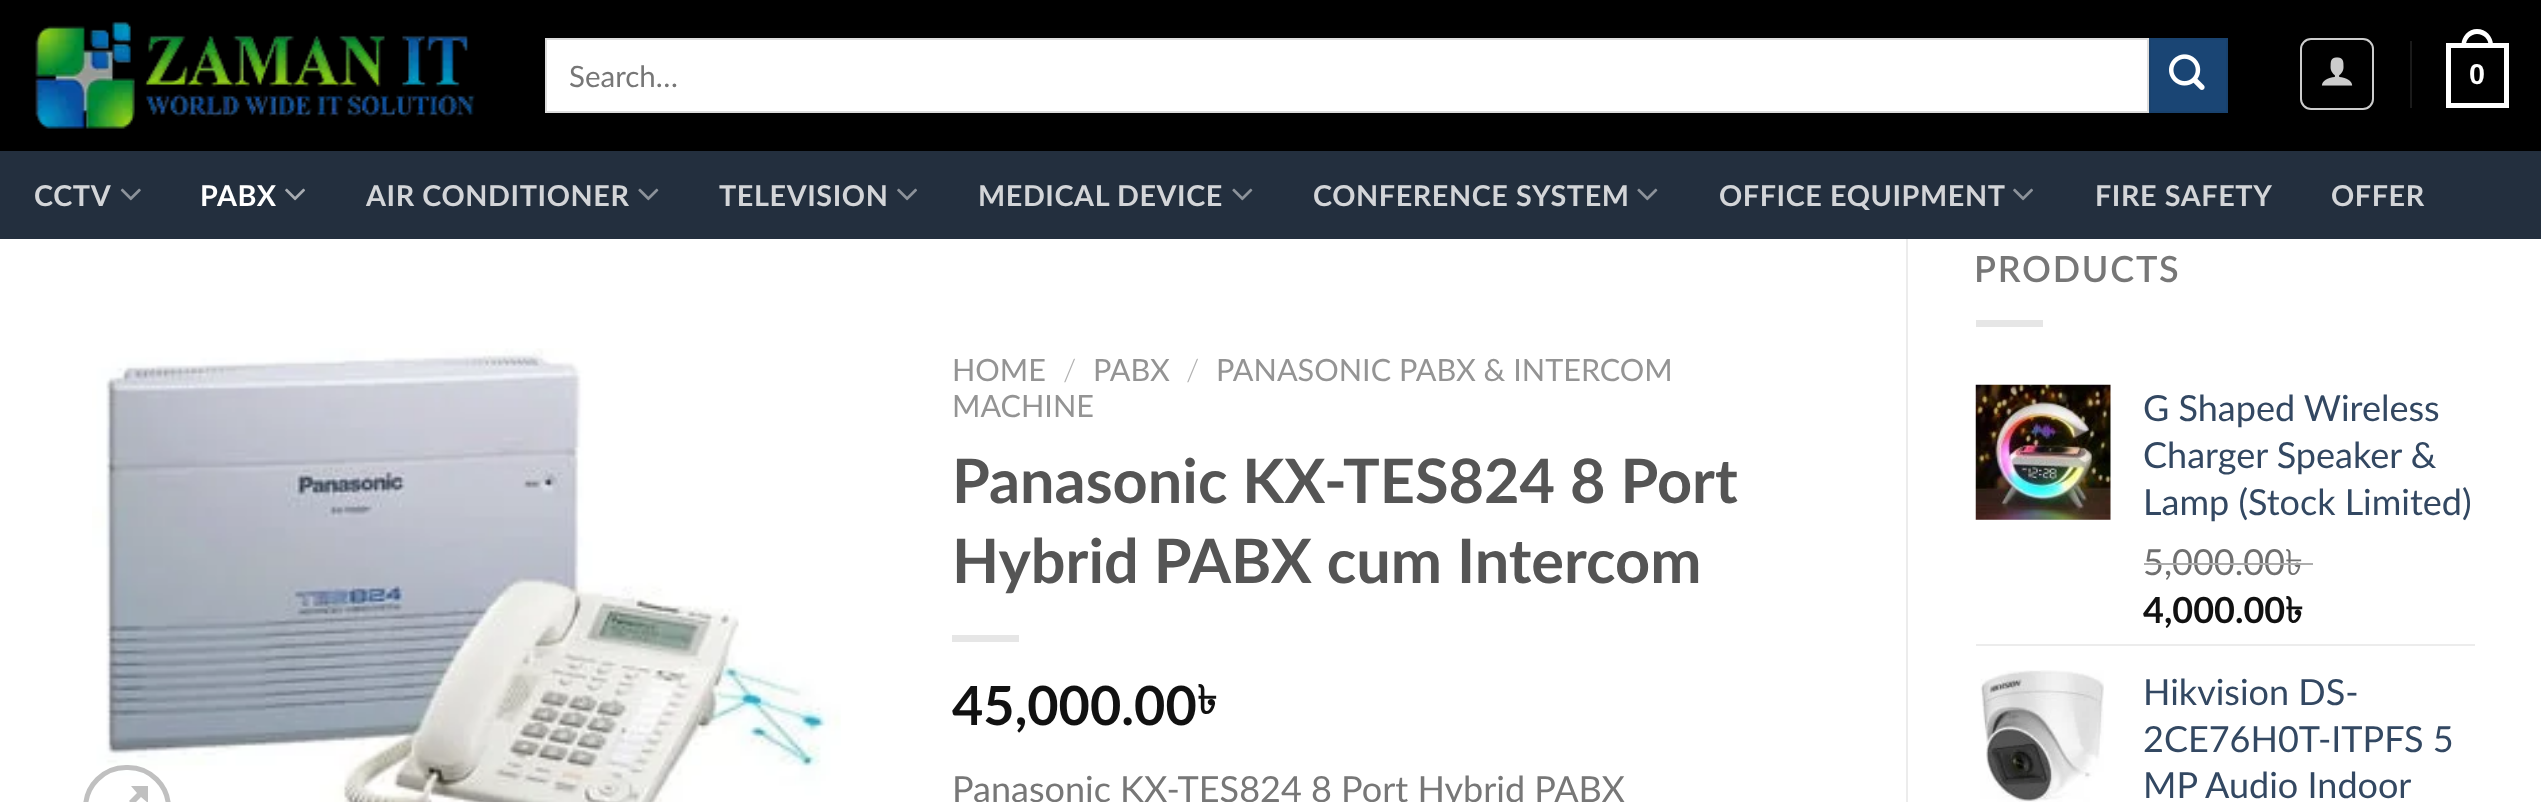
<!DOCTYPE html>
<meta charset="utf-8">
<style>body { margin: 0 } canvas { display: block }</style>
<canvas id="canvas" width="2541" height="802"></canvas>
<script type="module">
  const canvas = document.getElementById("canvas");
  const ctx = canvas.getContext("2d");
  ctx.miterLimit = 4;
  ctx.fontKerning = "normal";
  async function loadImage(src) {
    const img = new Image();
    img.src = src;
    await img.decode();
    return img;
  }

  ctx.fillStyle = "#ffffff";
  ctx.fillRect(0, 0, 2541, 802);
  ctx.fillStyle = "#000000";
  ctx.fillRect(0, 0, 2541, 151);
  ctx.drawImage(await loadImage("img1.png"), 35, 21, 440, 108);
  ctx.fillStyle = "#ffffff";
  ctx.beginPath();
  ctx.rect(546, 39, 1602, 73);
  ctx.fill();
  ctx.strokeStyle = "#dddddd";
  ctx.lineWidth = 2;
  ctx.stroke();
  ctx.font = "29.5px Lato";
  ctx.fillStyle = "#777777";
  ctx.fillText("Search…", 569, 87);
  ctx.fillStyle = "#1a4574";
  ctx.beginPath();
  ctx.rect(2150, 39, 77, 73);
  ctx.fill();
  ctx.strokeStyle = "#19426e";
  ctx.stroke();
  ctx.drawImage(await loadImage("img2.png"), 2169, 54, 36, 36);
  ctx.beginPath();
  ctx.roundRect(2301, 39, 72, 70, 10);
  ctx.strokeStyle = "#cccccc";
  ctx.stroke();
  ctx.drawImage(await loadImage("img3.png"), 2321, 57, 32, 29);
  ctx.fillStyle = "#1a1a1a";
  ctx.fillRect(2410, 41, 2, 67);
  ctx.strokeStyle = "#ffffff";
  ctx.lineWidth = 5;
  ctx.strokeRect(2448.5, 45.5, 58, 60);
  ctx.fillStyle = "#ffffff";
  ctx.beginPath();
  ctx.moveTo(2477, 29);
  ctx.bezierCurveTo(2486, 29, 2493, 36.5, 2493, 45);
  ctx.lineTo(2493, 47);
  ctx.lineTo(2461.5, 47);
  ctx.lineTo(2461.5, 45);
  ctx.bezierCurveTo(2461.5, 36.5, 2468.5, 29, 2477, 29);
  ctx.closePath();
  ctx.moveTo(2477, 34);
  ctx.bezierCurveTo(2483.5, 34, 2488.5, 39, 2488.5, 45);
  ctx.lineTo(2488.5, 47);
  ctx.lineTo(2466, 47);
  ctx.lineTo(2466, 45);
  ctx.bezierCurveTo(2466, 39, 2471, 34, 2477, 34);
  ctx.closePath();
  ctx.fill("evenodd");
  ctx.letterSpacing = "0.6px";
  ctx.font = "bold 28.75px Liberation Sans";
  ctx.fillText("0", 2469, 84);
  ctx.fillStyle = "#232f3e";
  ctx.fillRect(0, 151, 2541, 88);
  ctx.font = "bold 28.75px Lato";
  ctx.fillStyle = "#d3d5d8";
  ctx.fillText("CCTV", 34, 206);
  ctx.drawImage(await loadImage("img4.png"), 120, 188, 21, 13);
  ctx.fillStyle = "#ffffff";
  ctx.fillText("PABX", 200, 206);
  ctx.drawImage(await loadImage("img5.png"), 285, 188, 20, 13);
  ctx.fillStyle = "#d3d5d8";
  ctx.fillText("AIR CONDITIONER", 366, 206);
  ctx.drawImage(await loadImage("img6.png"), 638, 188, 21, 13);
  ctx.fillText("TELEVISION", 719, 206);
  ctx.drawImage(await loadImage("img7.png"), 897, 188, 20, 13);
  ctx.fillText("MEDICAL DEVICE", 978, 206);
  ctx.drawImage(await loadImage("img6.png"), 1232, 188, 21, 13);
  ctx.fillText("CONFERENCE SYSTEM", 1313, 206);
  ctx.drawImage(await loadImage("img6.png"), 1637, 188, 21, 13);
  ctx.fillText("OFFICE EQUIPMENT", 1719, 206);
  ctx.drawImage(await loadImage("img7.png"), 2013, 188, 20, 13);
  ctx.fillText("FIRE SAFETY", 2095, 206);
  ctx.fillText("OFFER", 2331, 206);
  ctx.fillStyle = "#ececec";
  ctx.fillRect(1906, 239, 2, 563);
  ctx.drawImage(await loadImage("img8.png"), 92, 348, 749, 454);
  ctx.beginPath();
  ctx.roundRect(85.5, 767.5, 83, 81, 41.5);
  ctx.strokeStyle = "#c0c0c0";
  ctx.stroke();
  ctx.fillStyle = "#c0c0c0";
  ctx.beginPath();
  ctx.moveTo(148, 786);
  ctx.lineTo(148, 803);
  ctx.lineTo(141, 797);
  ctx.lineTo(133, 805);
  ctx.lineTo(129, 801);
  ctx.lineTo(137, 793);
  ctx.lineTo(131, 786);
  ctx.closePath();
  ctx.moveTo(124, 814);
  ctx.lineTo(116, 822);
  ctx.lineTo(123, 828);
  ctx.lineTo(106, 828);
  ctx.lineTo(106, 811);
  ctx.lineTo(112, 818);
  ctx.lineTo(120, 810);
  ctx.closePath();
  ctx.fill();
  ctx.letterSpacing = "0px";
  ctx.font = "30.6px Lato";
  ctx.fillStyle = "#949494";
  ctx.fillText("HOME", 952, 381);
  ctx.font = "300 30.6px Lato";
  ctx.fillStyle = "#b2b2b2";
  ctx.fillText("/", 1063, 381);
  ctx.font = "30.6px Lato";
  ctx.fillStyle = "#949494";
  ctx.fillText("PABX", 1093, 381);
  ctx.font = "300 30.6px Lato";
  ctx.fillStyle = "#b2b2b2";
  ctx.fillText("/", 1186, 381);
  ctx.font = "30.6px Lato";
  ctx.fillStyle = "#949494";
  ctx.fillText("PANASONIC PABX & INTERCOM", 1216, 381);
  ctx.fillText("MACHINE", 952, 417);
  ctx.font = "bold 61.25px Lato";
  ctx.fillStyle = "#555555";
  ctx.fillText("Panasonic KX-TES824 8 Port", 952, 503);
  ctx.fillText("Hybrid PABX cum Intercom", 952, 583);
  ctx.fillStyle = "#e6e6e6";
  ctx.fillRect(952, 635, 67, 7);
  ctx.font = "bold 54px Lato";
  ctx.fillStyle = "#111111";
  ctx.fillText("45,000.00", 952, 725);
  ctx.font = "bold 40px Lohit Bengali";
  ctx.fillText("৳", 1197, 714);
  ctx.font = "36px Lato";
  ctx.fillStyle = "#777777";
  ctx.fillText("Panasonic KX-TES824 8 Port Hybrid PABX", 952, 802);
  ctx.letterSpacing = "1.75px";
  ctx.font = "600 36px Lato";
  ctx.fillText("PRODUCTS", 1974, 282);
  ctx.fillStyle = "#e6e6e6";
  ctx.fillRect(1976, 320, 67, 7);
  ctx.drawImage(await loadImage("img9.png"), 1975, 384, 136, 136);
  ctx.letterSpacing = "0px";
  ctx.font = "36px Lato";
  ctx.fillStyle = "#334862";
  ctx.fillText("G Shaped Wireless", 2143, 421);
  ctx.fillText("Charger Speaker &", 2143, 468);
  ctx.fillText("Lamp (Stock Limited)", 2143, 515);
  ctx.fillStyle = "#707070";
  ctx.fillText("5,000.00", 2143, 575);
  ctx.fillStyle = "#adadad";
  ctx.fillRect(2144, 563, 142, 2);
  ctx.font = "36px Lohit Bengali";
  ctx.fillStyle = "#707070";
  ctx.fillText("৳", 2285, 575);
  ctx.fillStyle = "#adadad";
  ctx.fillRect(2286, 563, 27, 2);
  ctx.font = "bold 36px Lato";
  ctx.fillStyle = "#111111";
  ctx.fillText("4,000.00", 2143, 623);
  ctx.font = "bold 36px Lohit Bengali";
  ctx.fillText("৳", 2285, 623);
  ctx.fillStyle = "#ececec";
  ctx.fillRect(1976, 644, 499, 2);
  ctx.drawImage(await loadImage("img10.png"), 1980, 670, 124, 132);
  ctx.font = "36px Lato";
  ctx.fillStyle = "#334862";
  ctx.fillText("Hikvision DS-", 2143, 705);
  ctx.fillText("2CE76H0T-ITPFS 5", 2143, 752);
  ctx.fillText("MP Audio Indoor", 2143, 798);
</script>
